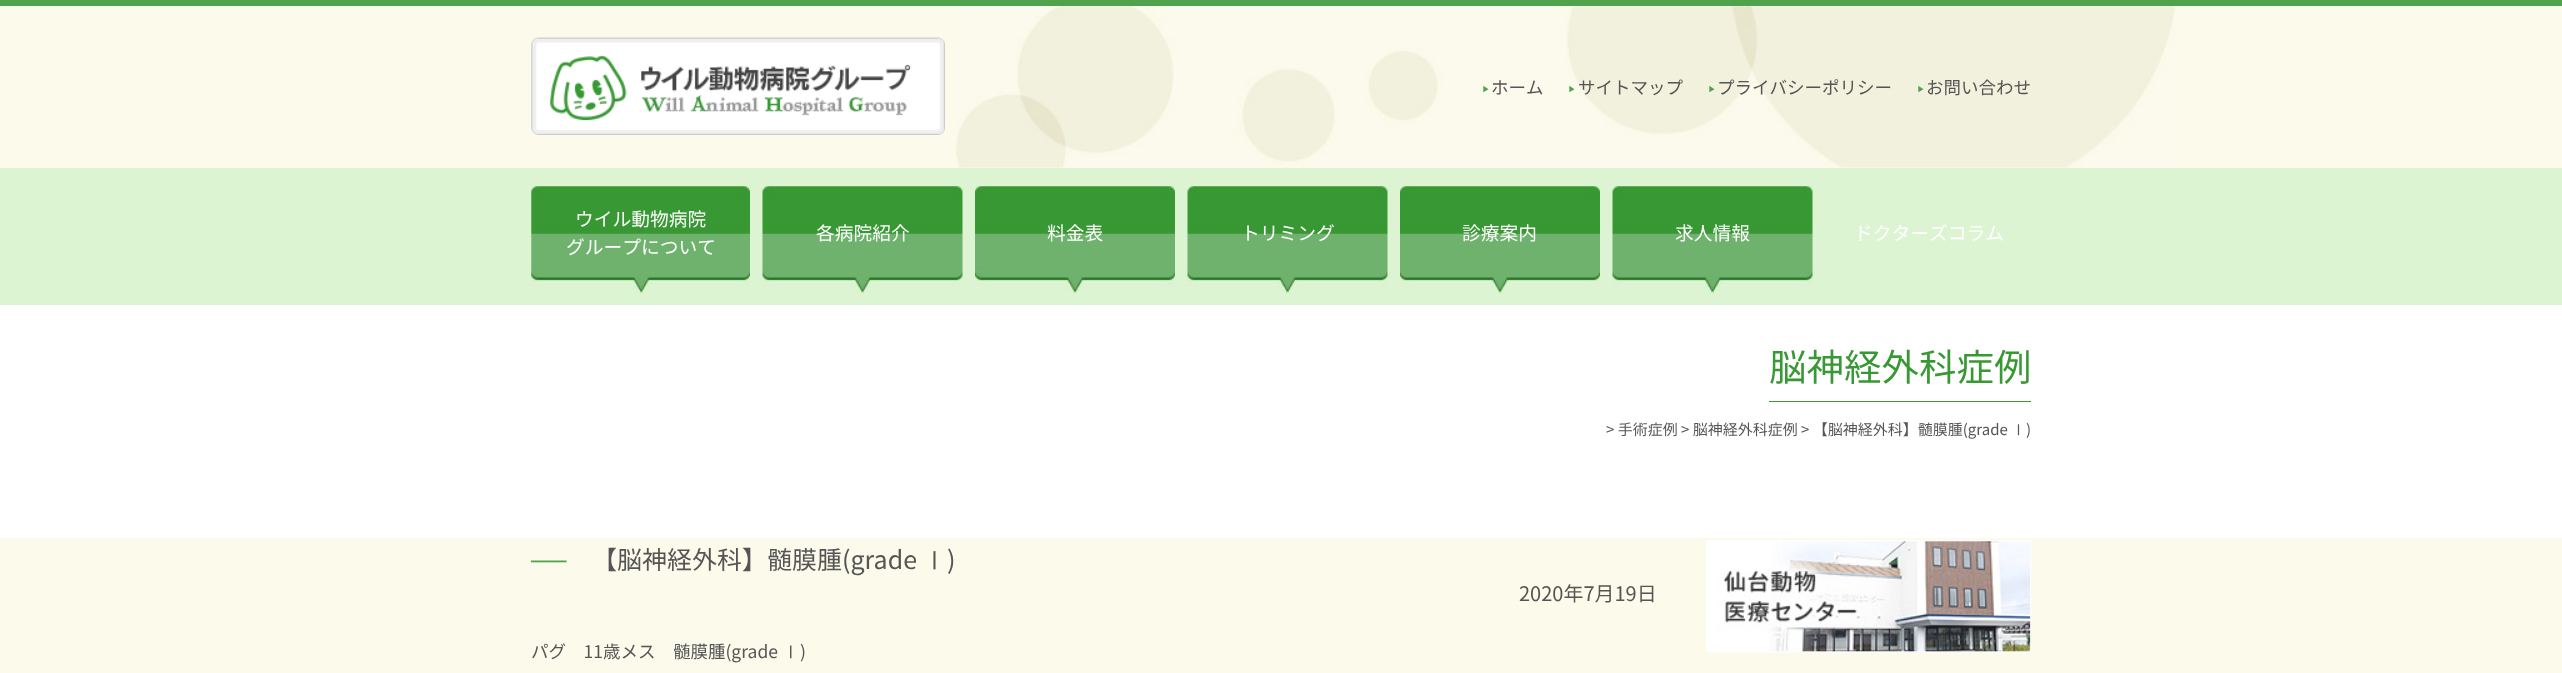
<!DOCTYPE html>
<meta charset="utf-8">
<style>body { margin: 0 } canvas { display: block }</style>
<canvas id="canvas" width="2562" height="673"></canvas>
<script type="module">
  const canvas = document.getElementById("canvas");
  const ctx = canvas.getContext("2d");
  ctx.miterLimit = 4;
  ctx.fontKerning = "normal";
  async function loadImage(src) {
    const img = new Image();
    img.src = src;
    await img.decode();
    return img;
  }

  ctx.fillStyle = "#fbfaeb";
  ctx.fillRect(0, 0, 2562, 673);
  ctx.fillStyle = "#ffffff";
  ctx.fillRect(0, 305, 2562, 233);
  ctx.drawImage(await loadImage("img1.png"), 956, 6, 1219, 162);
  ctx.fillStyle = "#50a34d";
  ctx.fillRect(0, 0, 2562, 6);
  ctx.drawImage(await loadImage("img2.png"), 531, 37, 414, 98);
  ctx.font = "500 8px WenQuanYi Zen Hei";
  ctx.fillText("▶", 1482, 92);
  ctx.font = "17.5px Noto Sans JP";
  ctx.fillStyle = "#555555";
  ctx.fillText("ホーム", 1491, 94);
  ctx.font = "500 8px WenQuanYi Zen Hei";
  ctx.fillStyle = "#50a34d";
  ctx.fillText("▶", 1568, 92);
  ctx.font = "17.5px Noto Sans JP";
  ctx.fillStyle = "#555555";
  ctx.fillText("サイトマップ", 1578, 94);
  ctx.font = "500 8px WenQuanYi Zen Hei";
  ctx.fillStyle = "#50a34d";
  ctx.fillText("▶", 1708, 92);
  ctx.font = "17.5px Noto Sans JP";
  ctx.fillStyle = "#555555";
  ctx.fillText("プライバシーポリシー", 1717, 94);
  ctx.font = "500 8px WenQuanYi Zen Hei";
  ctx.fillStyle = "#50a34d";
  ctx.fillText("▶", 1917, 92);
  ctx.font = "17.5px Noto Sans JP";
  ctx.fillStyle = "#555555";
  ctx.fillText("お問い合わせ", 1926, 94);
  ctx.fillStyle = "#dcf4d1";
  ctx.fillRect(0, 168, 2562, 137);
  ctx.drawImage(await loadImage("img3.png"), 531, 186, 219, 107);
  ctx.font = "18.75px Noto Sans JP";
  ctx.fillStyle = "#ffffff";
  ctx.fillText("ウイル動物病院", 575, 226);
  ctx.fillText("グループについて", 566, 254);
  ctx.drawImage(await loadImage("img4.png"), 762, 186, 201, 107);
  ctx.fillText("各病院紹介", 816, 240);
  ctx.drawImage(await loadImage("img5.png"), 975, 186, 200, 107);
  ctx.fillText("料金表", 1047, 240);
  ctx.drawImage(await loadImage("img6.png"), 1187, 186, 201, 107);
  ctx.fillText("トリミング", 1241, 240);
  ctx.drawImage(await loadImage("img7.png"), 1400, 186, 200, 107);
  ctx.fillText("診療案内", 1462, 240);
  ctx.drawImage(await loadImage("img8.png"), 1612, 186, 201, 107);
  ctx.fillText("求人情報", 1675, 240);
  ctx.fillText("ドクターズコラム", 1854, 240);
  ctx.fillStyle = "#389834";
  ctx.fillRect(1769, 401, 262, 1);
  ctx.font = "37.5px Noto Sans JP";
  ctx.fillText("脳神経外科症例", 1769, 381);
  ctx.font = "15px Noto Sans JP";
  ctx.fillStyle = "#555555";
  ctx.fillText("> 手術症例 > 脳神経外科症例 > 【脳神経外科】髄膜腫(grade", 1606, 435);
  ctx.font = "500 15px WenQuanYi Zen Hei";
  ctx.fillText("Ⅰ", 2011, 435);
  ctx.font = "15px Noto Sans JP";
  ctx.fillText(")", 2026, 435);
  ctx.font = "25px Liberation Serif";
  ctx.fillStyle = "#50a34d";
  ctx.fillText("──", 531, 569);
  ctx.font = "25px Noto Sans JP";
  ctx.fillStyle = "#555555";
  ctx.fillText("【脳神経外科】髄膜腫(grade", 592, 569);
  ctx.font = "500 25px WenQuanYi Zen Hei";
  ctx.fillText("Ⅰ", 922, 569);
  ctx.font = "25px Noto Sans JP";
  ctx.fillText(")", 947, 569);
  ctx.font = "20px Noto Sans JP";
  ctx.fillText("2020年7月19日", 1519, 601);
  ctx.font = "17.5px Noto Sans JP";
  ctx.fillText("パグ　11歳メス　髄膜腫(grade", 531, 658);
  ctx.font = "500 17.5px WenQuanYi Zen Hei";
  ctx.fillText("Ⅰ", 782, 658);
  ctx.font = "17.5px Noto Sans JP";
  ctx.fillText(")", 800, 658);
  ctx.drawImage(await loadImage("img9.png"), 1706, 540, 326, 113);
</script>
